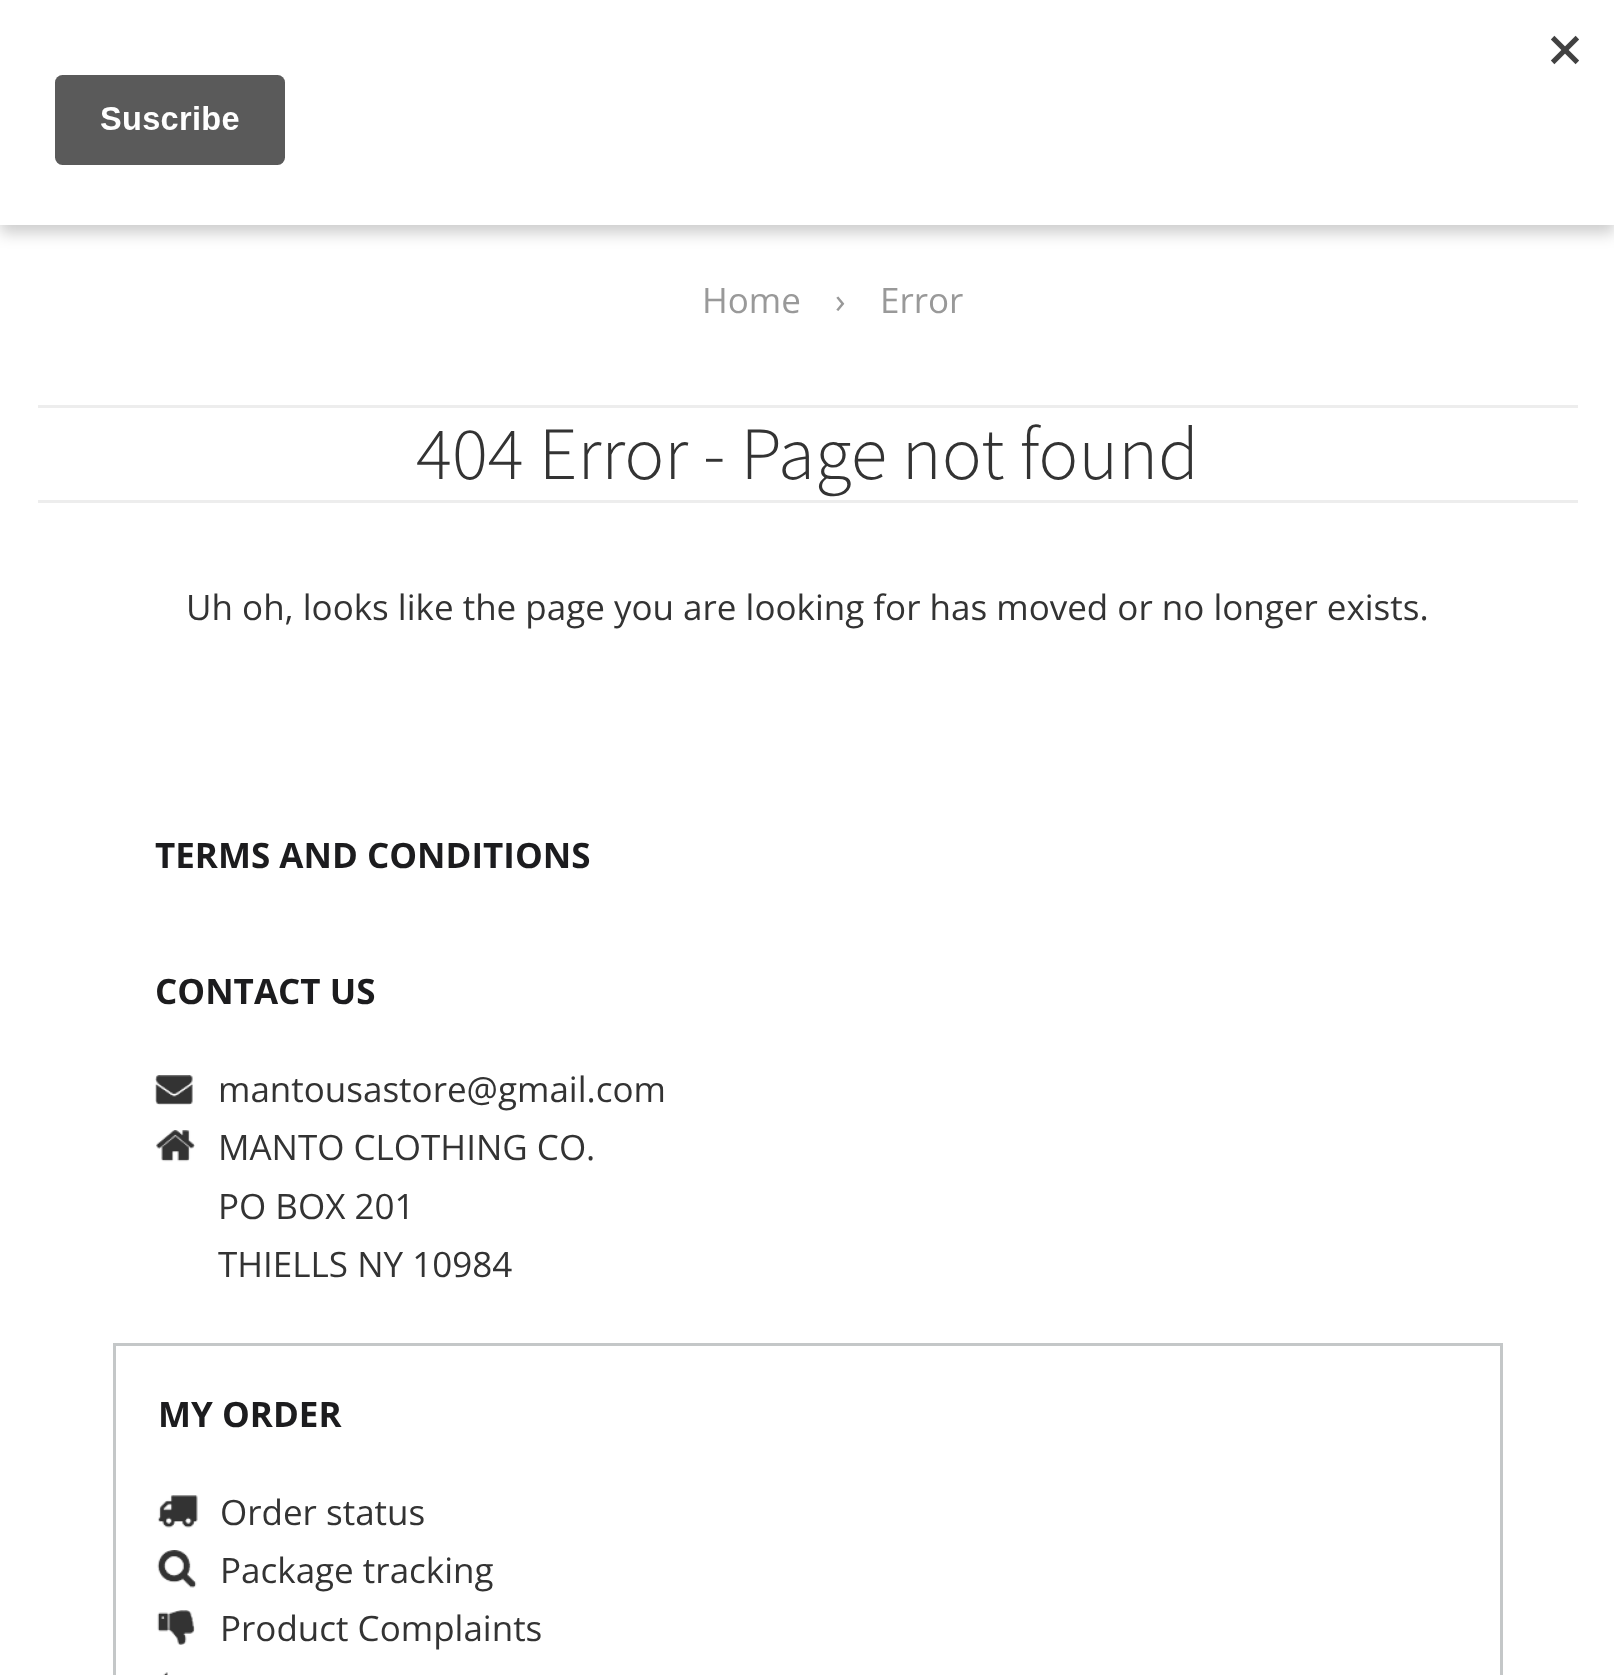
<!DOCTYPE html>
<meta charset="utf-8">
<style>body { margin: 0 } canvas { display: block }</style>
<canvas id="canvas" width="1614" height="1675"></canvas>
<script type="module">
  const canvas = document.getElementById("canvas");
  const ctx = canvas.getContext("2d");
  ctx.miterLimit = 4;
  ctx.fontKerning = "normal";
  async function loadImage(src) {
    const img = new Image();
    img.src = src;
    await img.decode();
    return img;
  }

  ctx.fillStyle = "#ffffff";
  ctx.fillRect(0, 0, 1614, 1675);
  ctx.fillStyle = "rgba(0, 0, 0, 0.2)";
  ctx.filter = "blur(7.5px)";
  ctx.beginPath();
  ctx.rect(0, 8, 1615, 225);
  ctx.fill();
  ctx.filter = "none";
  ctx.fillStyle = "#ffffff";
  ctx.fillRect(0, 0, 1614, 225);
  ctx.drawImage(await loadImage("img1.png"), 55, 35, 1524, 130);
  ctx.font = "35px Open Sans";
  ctx.fillStyle = "#999999";
  ctx.fillText("Home", 702, 313);
  ctx.fillText("›", 835, 313);
  ctx.fillText("Error", 880, 313);
  ctx.fillStyle = "#ededed";
  ctx.fillRect(38, 405, 1540, 3);
  ctx.fillRect(38, 500, 1540, 3);
  ctx.font = "300 75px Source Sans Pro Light";
  ctx.fillStyle = "#333333";
  ctx.fillText("404 Error - Page not found", 416, 479);
  ctx.font = "35px Open Sans";
  ctx.fillText("Uh oh, looks like the page you are looking for has moved or no longer exists.", 186, 620);
  ctx.font = "bold 35px Open Sans";
  ctx.fillStyle = "#1c1c1e";
  ctx.fillText("TERMS AND CONDITIONS", 155, 868);
  ctx.fillText("CONTACT US", 155, 1004);
  ctx.drawImage(await loadImage("img2.png"), 155, 1075, 38, 30);
  ctx.font = "35px Open Sans";
  ctx.fillStyle = "#333333";
  ctx.fillText("mantousastore@gmail.com", 218, 1102);
  ctx.drawImage(await loadImage("img3.png"), 156, 1130, 39, 32);
  ctx.fillText("MANTO CLOTHING CO.", 218, 1160);
  ctx.fillText("PO BOX 201", 218, 1219);
  ctx.fillText("THIELLS NY 10984", 218, 1277);
  ctx.strokeStyle = "#c4c7c8";
  ctx.lineWidth = 3;
  ctx.strokeRect(114.5, 1344.5, 1387, 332);
  ctx.font = "bold 35px Open Sans";
  ctx.fillStyle = "#1c1c1e";
  ctx.fillText("MY ORDER", 158, 1427);
  ctx.drawImage(await loadImage("img4.png"), 157, 1495, 41, 33);
  ctx.font = "35px Open Sans";
  ctx.fillStyle = "#333333";
  ctx.fillText("Order status", 220, 1525);
  ctx.drawImage(await loadImage("img5.png"), 157, 1550, 40, 38);
  ctx.fillText("Package tracking", 220, 1583);
  ctx.drawImage(await loadImage("img6.png"), 157, 1610, 38, 35);
  ctx.fillText("Product Complaints", 220, 1641);
  ctx.drawImage(await loadImage("img7.png"), 163, 1672, 5, 3);
</script>
